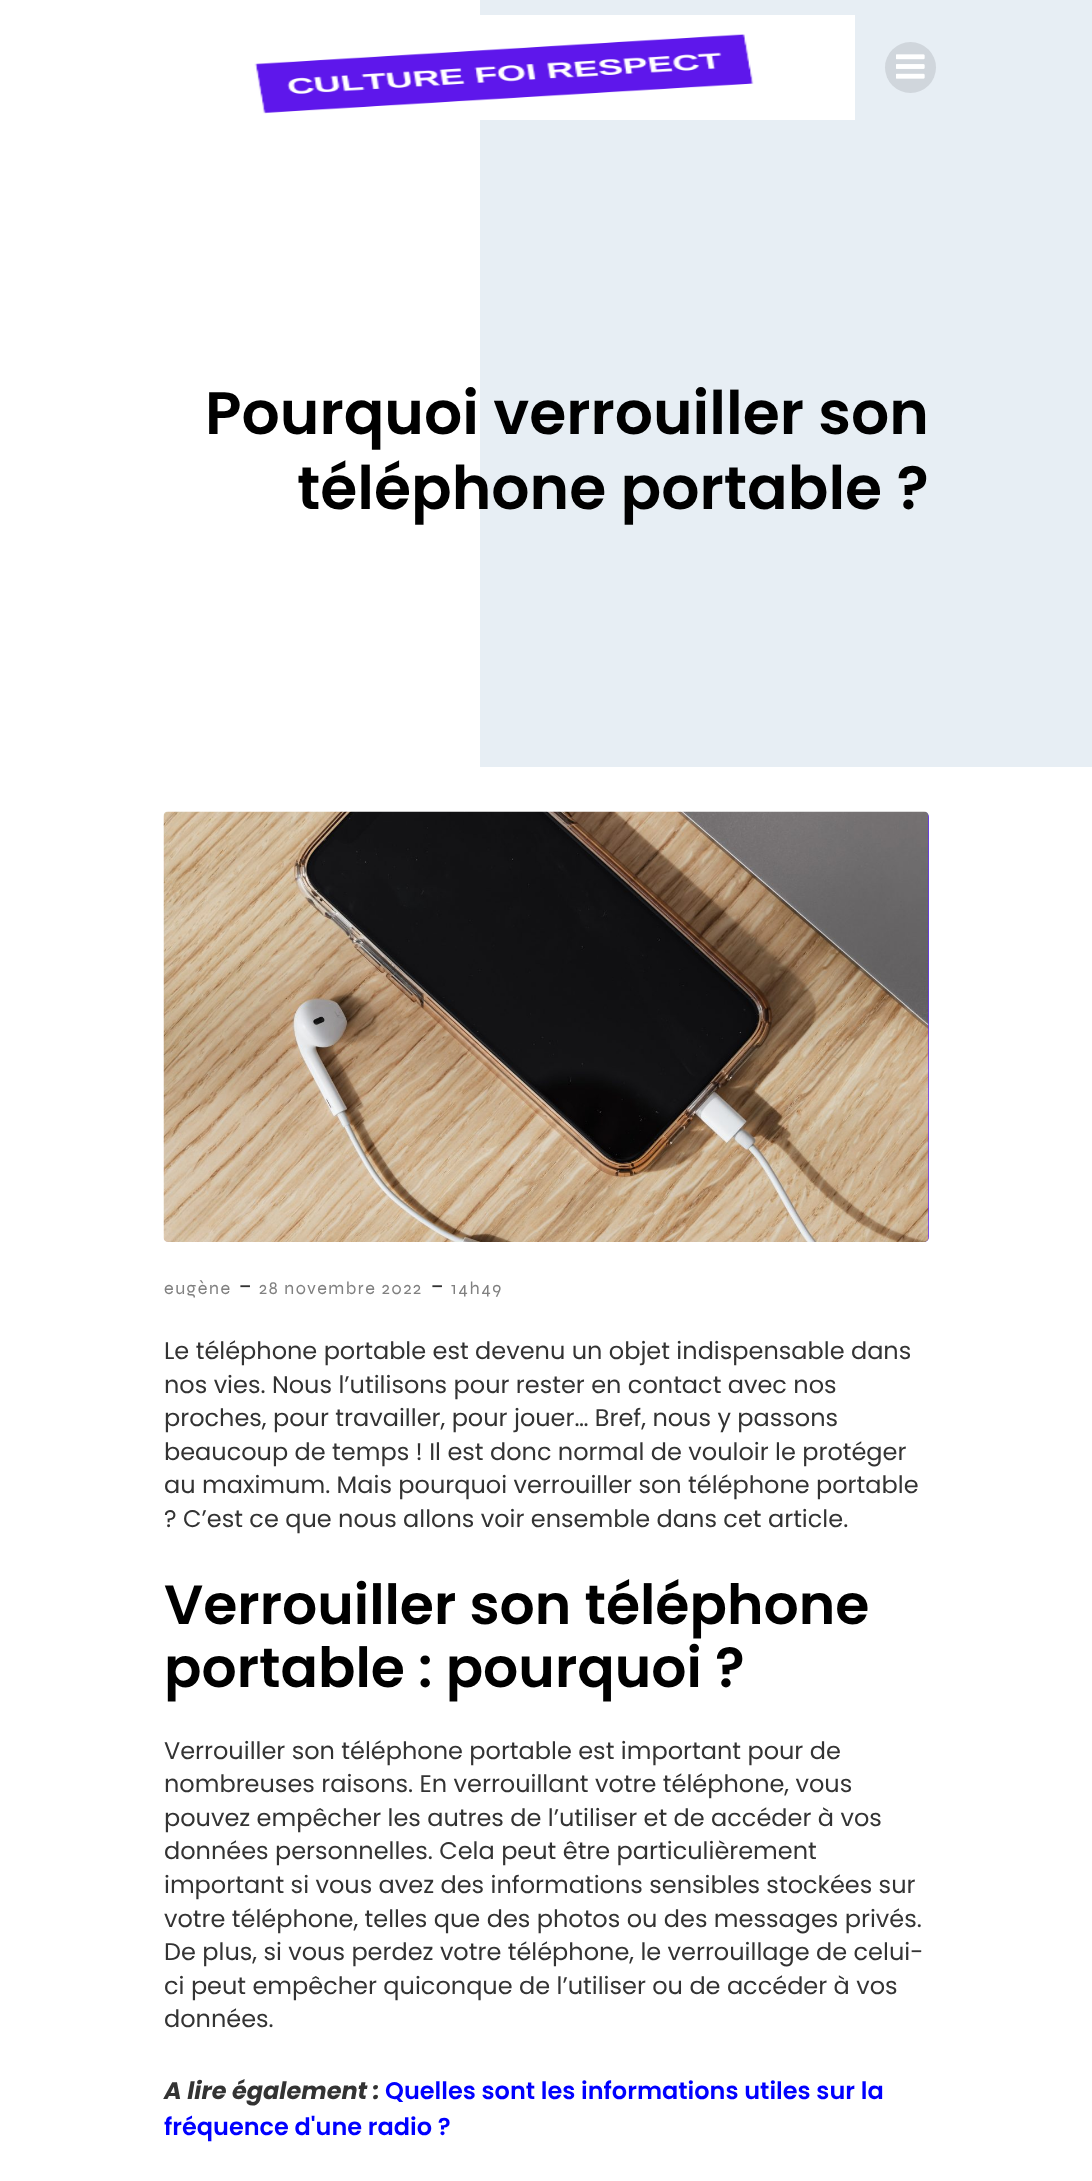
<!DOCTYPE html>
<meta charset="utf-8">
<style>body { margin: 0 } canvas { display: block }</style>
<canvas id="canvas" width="1092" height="2181"></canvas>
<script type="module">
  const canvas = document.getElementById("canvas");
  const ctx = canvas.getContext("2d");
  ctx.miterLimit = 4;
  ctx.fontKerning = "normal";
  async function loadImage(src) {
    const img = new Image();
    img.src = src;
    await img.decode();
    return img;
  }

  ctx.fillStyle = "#ffffff";
  ctx.fillRect(0, 0, 1092, 2181);
  ctx.fillStyle = "#e7eef4";
  ctx.fillRect(480, 0, 612, 767);
  ctx.drawImage(await loadImage("img1.png"), 254, 15, 601, 105);
  ctx.fillStyle = "#d0d6dc";
  ctx.beginPath();
  ctx.arc(910.5, 67.5, 25.5, 0, Math.PI * 2);
  ctx.fill();
  ctx.drawImage(await loadImage("img2.png"), 896, 54, 29, 25);
  ctx.font = "600 60px Poppins";
  ctx.fillStyle = "#000000";
  ctx.fillText("Pourquoi verrouiller son", 205, 434);
  ctx.fillText("téléphone portable ?", 297, 509);
  ctx.fillStyle = "#6632ff";
  ctx.beginPath();
  ctx.roundRect(164, 812, 765, 430, 5);
  ctx.fill();
  ctx.drawImage(await loadImage("img3.png"), 163, 811, 766, 431);
  ctx.letterSpacing = "1.5px";
  ctx.font = "18px Syne";
  ctx.fillStyle = "#808080";
  ctx.fillText("eugène", 164, 1294);
  ctx.letterSpacing = "0px";
  ctx.font = "24px Poppins";
  ctx.fillStyle = "#333333";
  ctx.fillText("-", 239, 1295);
  ctx.letterSpacing = "1.5px";
  ctx.font = "18px Syne";
  ctx.fillStyle = "#808080";
  ctx.fillText("28 novembre 2022", 259, 1294);
  ctx.letterSpacing = "0px";
  ctx.font = "24px Poppins";
  ctx.fillStyle = "#333333";
  ctx.fillText("-", 431, 1295);
  ctx.letterSpacing = "1.5px";
  ctx.font = "18px Syne";
  ctx.fillStyle = "#808080";
  ctx.fillText("14h49", 451, 1294);
  ctx.letterSpacing = "0px";
  ctx.font = "24px Poppins";
  ctx.fillStyle = "#333333";
  ctx.fillText("Le téléphone portable est devenu un objet indispensable dans", 164, 1359);
  ctx.fillText("nos vies. Nous l’utilisons pour rester en contact avec nos", 164, 1393);
  ctx.fillText("proches, pour travailler, pour jouer… Bref, nous y passons", 164, 1426);
  ctx.fillText("beaucoup de temps ! Il est donc normal de vouloir le protéger", 164, 1460);
  ctx.fillText("au maximum. Mais pourquoi verrouiller son téléphone portable", 164, 1493);
  ctx.fillText("? C’est ce que nous allons voir ensemble dans cet article.", 164, 1527);
  ctx.font = "600 55.25px Poppins";
  ctx.fillStyle = "#000000";
  ctx.fillText("Verrouiller son téléphone", 164, 1624);
  ctx.fillText("portable : pourquoi ?", 164, 1687);
  ctx.font = "24px Poppins";
  ctx.fillStyle = "#333333";
  ctx.fillText("Verrouiller son téléphone portable est important pour de", 164, 1759);
  ctx.fillText("nombreuses raisons. En verrouillant votre téléphone, vous", 164, 1792);
  ctx.fillText("pouvez empêcher les autres de l’utiliser et de accéder à vos", 164, 1826);
  ctx.fillText("données personnelles. Cela peut être particulièrement", 164, 1859);
  ctx.fillText("important si vous avez des informations sensibles stockées sur", 164, 1893);
  ctx.fillText("votre téléphone, telles que des photos ou des messages privés.", 164, 1927);
  ctx.fillText("De plus, si vous perdez votre téléphone, le verrouillage de celui-", 164, 1960);
  ctx.fillText("ci peut empêcher quiconque de l’utiliser ou de accéder à vos", 164, 1994);
  ctx.fillText("données.", 164, 2027);
  ctx.font = "italic bold 24px Poppins";
  ctx.fillText("A lire également :", 164, 2099);
  ctx.font = "600 24px Poppins";
  ctx.fillStyle = "#0000ff";
  ctx.fillText("Quelles sont les informations utiles sur la", 385, 2099);
  ctx.fillText("fréquence d'une radio ?", 164, 2135);
</script>
